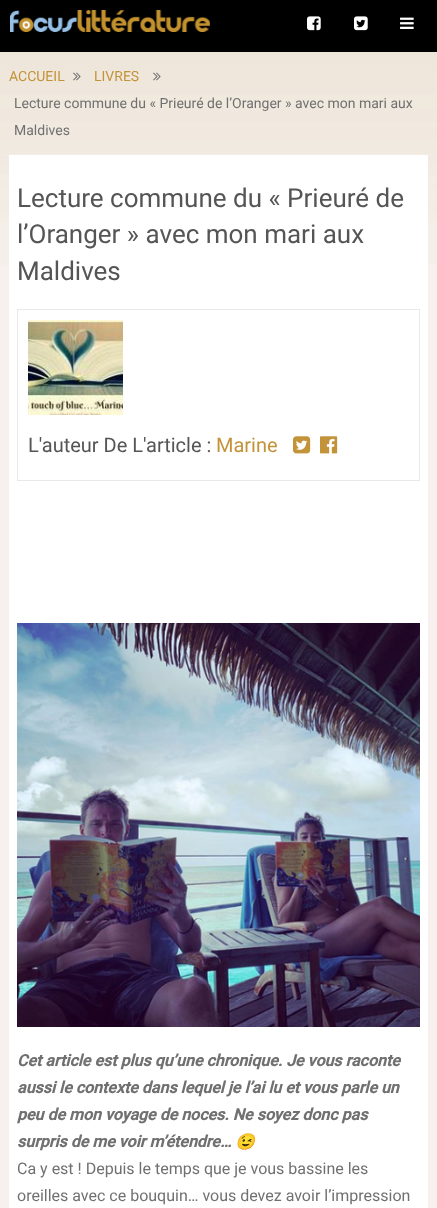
<!DOCTYPE html>
<meta charset="utf-8">
<style>body { margin: 0 } canvas { display: block }</style>
<canvas id="canvas" width="437" height="1208"></canvas>
<script type="module">
  const canvas = document.getElementById("canvas");
  const ctx = canvas.getContext("2d");
  ctx.miterLimit = 4;
  ctx.fontKerning = "normal";
  async function loadImage(src) {
    const img = new Image();
    img.src = src;
    await img.decode();
    return img;
  }

  ctx.fillStyle = "#f7f0ee";
  ctx.fillRect(0, 0, 437, 1208);
  ctx.drawImage(await loadImage("img1.png"), 0, 52, 437, 213);
  ctx.fillStyle = "#000000";
  ctx.fillRect(0, 0, 437, 52);
  ctx.drawImage(await loadImage("img2.png"), 10, 10, 200, 22);
  ctx.drawImage(await loadImage("img3.png"), 307, 16, 14, 15);
  ctx.drawImage(await loadImage("img4.png"), 354, 16, 14, 15);
  ctx.drawImage(await loadImage("img5.png"), 400, 17, 14, 12);
  ctx.font = "14px Roboto";
  ctx.fillStyle = "#c3933a";
  ctx.fillText("ACCUEIL", 9, 81);
  ctx.drawImage(await loadImage("img6.png"), 73, 72, 8, 9);
  ctx.fillText("LIVRES", 94, 81);
  ctx.drawImage(await loadImage("img6.png"), 153, 72, 8, 9);
  ctx.fillStyle = "#707070";
  ctx.fillText("Lecture commune du « Prieuré de l’Oranger » avec mon mari aux", 14, 108);
  ctx.fillText("Maldives", 14, 135);
  ctx.fillStyle = "#ffffff";
  ctx.fillRect(9, 155, 419, 1053);
  ctx.font = "26px Roboto";
  ctx.fillStyle = "#555555";
  ctx.fillText("Lecture commune du « Prieuré de", 17, 207);
  ctx.fillText("l’Oranger » avec mon mari aux", 17, 243);
  ctx.fillText("Maldives", 17, 280);
  ctx.strokeStyle = "#e9e9e9";
  ctx.strokeRect(17.5, 309.5, 402, 171);
  ctx.drawImage(await loadImage("img7.png"), 28, 320, 95, 95);
  ctx.font = "20px Roboto";
  ctx.fillText("L'auteur De L'article :", 28, 452);
  ctx.fillStyle = "#c3933a";
  ctx.fillText("Marine", 216, 452);
  ctx.drawImage(await loadImage("img8.png"), 293, 436, 18, 18);
  ctx.drawImage(await loadImage("img9.png"), 320, 436, 18, 18);
  ctx.drawImage(await loadImage("img10.png"), 17, 623, 403, 404);
  ctx.font = "italic bold 16px Roboto";
  ctx.fillStyle = "#707070";
  ctx.fillText("Cet article est plus qu’une chronique. Je vous raconte", 17, 1066);
  ctx.fillText("aussi le contexte dans lequel je l’ai lu et vous parle un", 17, 1093);
  ctx.fillText("peu de mon voyage de noces. Ne soyez donc pas", 17, 1120);
  ctx.fillText("surpris de me voir m’étendre…", 17, 1147);
  ctx.font = "italic bold 16px Noto Color Emoji";
  ctx.fillText("😉", 235, 1147);
  ctx.font = "16px Roboto";
  ctx.fillText("Ca y est ! Depuis le temps que je vous bassine les", 17, 1174);
  ctx.fillText("oreilles avec ce bouquin… vous devez avoir l’impression", 17, 1201);
</script>
